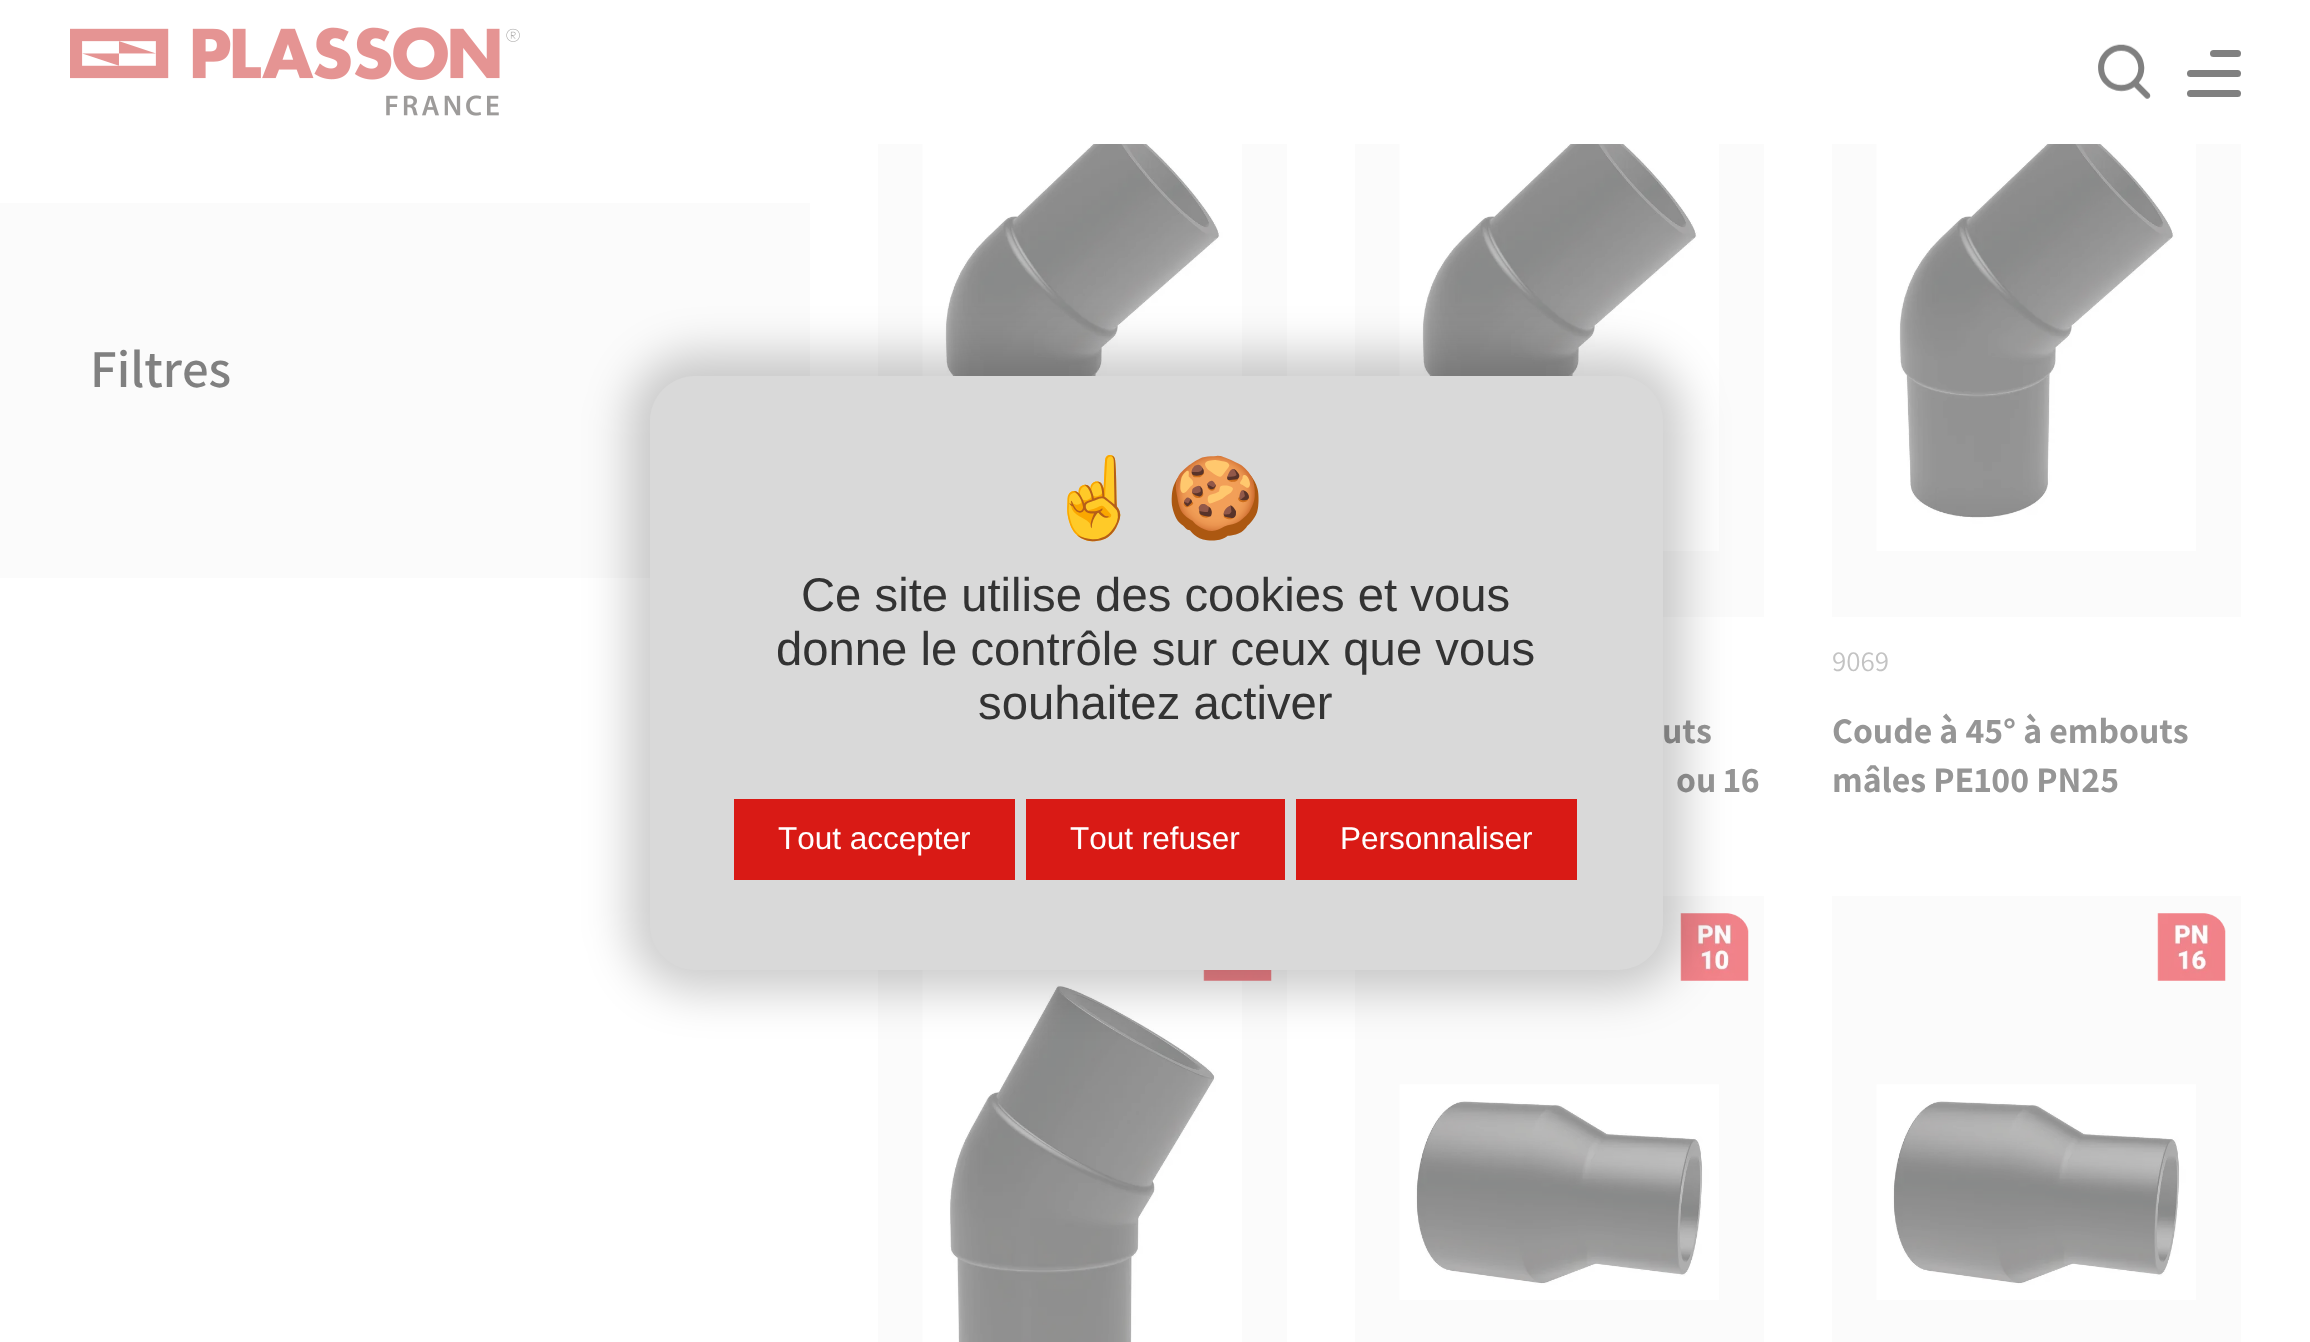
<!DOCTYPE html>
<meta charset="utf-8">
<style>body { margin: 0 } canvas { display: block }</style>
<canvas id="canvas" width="2310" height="1342"></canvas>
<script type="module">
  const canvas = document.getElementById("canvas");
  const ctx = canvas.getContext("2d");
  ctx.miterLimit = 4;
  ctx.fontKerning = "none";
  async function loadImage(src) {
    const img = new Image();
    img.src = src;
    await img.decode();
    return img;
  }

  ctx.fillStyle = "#ffffff";
  ctx.fillRect(0, 0, 2310, 1342);
  ctx.drawImage(await loadImage("img1.png"), 70, 27, 450, 89);
  ctx.drawImage(await loadImage("img2.png"), 2098, 44, 53, 55);
  ctx.fillStyle = "#808080";
  ctx.beginPath();
  ctx.roundRect(2210, 50, 31, 7, 3.5);
  ctx.fill();
  ctx.beginPath();
  ctx.roundRect(2187, 70, 54, 7, 3.5);
  ctx.fill();
  ctx.beginPath();
  ctx.roundRect(2187, 90, 54, 7, 3.5);
  ctx.fill();
  ctx.fillStyle = "#fbfbfb";
  ctx.fillRect(0, 203, 810, 375);
  ctx.font = "200 53px 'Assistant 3'";
  ctx.fillStyle = "#808080";
  ctx.fillText("Filtres", 90, 387);
  ctx.fillStyle = "#fbfbfb";
  ctx.fillRect(878, 144, 409, 232);
  ctx.drawImage(await loadImage("img3.png"), 922, 144, 320, 232);
  ctx.fillRect(1355, 144, 409, 473);
  ctx.drawImage(await loadImage("img4.png"), 1399, 144, 320, 407);
  ctx.font = "200 36px Assistant";
  ctx.fillStyle = "#969696";
  ctx.fillText("uts", 1662, 743);
  ctx.fillText("ou 16", 1676, 792);
  ctx.fillStyle = "#fbfbfb";
  ctx.fillRect(1832, 144, 409, 473);
  ctx.drawImage(await loadImage("img4.png"), 1876, 144, 320, 407);
  ctx.font = "200 29px 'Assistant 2'";
  ctx.fillStyle = "#c3c3c3";
  ctx.fillText("9069", 1832, 671);
  ctx.font = "200 36px Assistant";
  ctx.fillStyle = "#969696";
  ctx.fillText("Coude à 45° à embouts", 1832, 743);
  ctx.fillText("mâles PE100 PN25", 1832, 792);
  ctx.fillStyle = "#fbfbfb";
  ctx.fillRect(878, 970, 409, 372);
  ctx.drawImage(await loadImage("img5.png"), 922, 970, 320, 372);
  ctx.drawImage(await loadImage("img6.png"), 1203, 970, 69, 11);
  ctx.fillRect(1355, 896, 409, 446);
  ctx.drawImage(await loadImage("img7.png"), 1680, 913, 69, 68);
  ctx.drawImage(await loadImage("img8.png"), 1399, 1084, 320, 216);
  ctx.fillRect(1832, 896, 409, 446);
  ctx.drawImage(await loadImage("img9.png"), 2157, 913, 69, 68);
  ctx.drawImage(await loadImage("img8.png"), 1876, 1084, 320, 216);
  ctx.fillStyle = "rgba(0, 0, 0, 0.2)";
  ctx.filter = "blur(22.5px)";
  ctx.beginPath();
  ctx.roundRect(628, 353, 1057, 639, 68);
  ctx.fill();
  ctx.filter = "none";
  ctx.fillStyle = "#d9d9d9";
  ctx.beginPath();
  ctx.roundRect(650, 376, 1013, 594, 45);
  ctx.fill();
  ctx.font = "79px Noto Color Emoji";
  ctx.fillStyle = "#ffffff";
  ctx.fillText("☝", 1046, 525);
  ctx.fillText("🍪", 1166, 525);
  ctx.font = "47.25px Liberation Sans";
  ctx.fillStyle = "#333333";
  ctx.fillText("Ce site utilise des cookies et vous", 801, 611);
  ctx.fillText("donne le contrôle sur ceux que vous", 776, 665);
  ctx.fillText("souhaitez activer", 978, 719);
  ctx.fillStyle = "#d91a15";
  ctx.fillRect(734, 799, 281, 81);
  ctx.font = "31.5px Liberation Sans";
  ctx.fillStyle = "#ffffff";
  ctx.fillText("Tout accepter", 778, 849);
  ctx.fillStyle = "#d91a15";
  ctx.fillRect(1026, 799, 259, 81);
  ctx.fillStyle = "#ffffff";
  ctx.fillText("Tout refuser", 1070, 849);
  ctx.fillStyle = "#d91a15";
  ctx.fillRect(1296, 799, 281, 81);
  ctx.fillStyle = "#ffffff";
  ctx.fillText("Personnaliser", 1340, 849);
</script>
